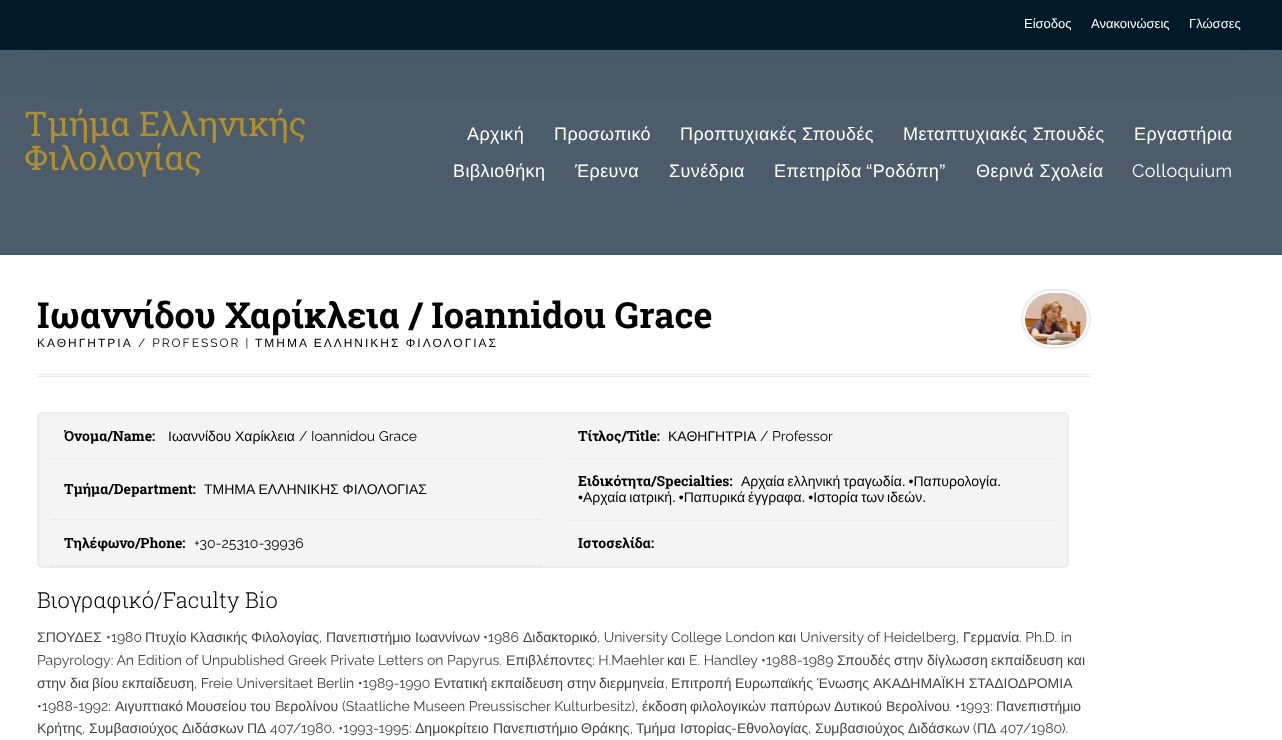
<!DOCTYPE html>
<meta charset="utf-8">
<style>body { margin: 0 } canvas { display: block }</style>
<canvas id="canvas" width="1282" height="740"></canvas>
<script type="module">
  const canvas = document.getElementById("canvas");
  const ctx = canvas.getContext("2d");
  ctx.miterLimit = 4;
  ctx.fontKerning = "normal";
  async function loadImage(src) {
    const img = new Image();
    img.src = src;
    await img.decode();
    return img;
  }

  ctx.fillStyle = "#ffffff";
  ctx.fillRect(0, 0, 1282, 740);
  ctx.fillStyle = "#4c5c6a";
  ctx.fillRect(0, 50, 1282, 205);
  ctx.fillStyle = "rgba(25, 41, 55, 0.1)";
  ctx.filter = "blur(25px)";
  ctx.beginPath();
  ctx.rect(0, 0, 1282, 50);
  ctx.fill();
  ctx.filter = "none";
  ctx.fillStyle = "#011a29";
  ctx.fillRect(0, 0, 1282, 50);
  ctx.font = "13px Liberation Sans";
  ctx.fillStyle = "#ffffff";
  ctx.fillText("Είσοδος", 1024, 28);
  ctx.fillText("Ανακοινώσεις", 1091, 28);
  ctx.fillText("Γλώσσες", 1189, 28);
  ctx.font = "34px Roboto Slab";
  ctx.fillStyle = "#ad8e34";
  ctx.fillText("Τμήμα Ελληνικής", 24, 136);
  ctx.fillText("Φιλολογίας", 24, 170);
  ctx.letterSpacing = "0.4px";
  ctx.font = "18px Liberation Sans";
  ctx.fillStyle = "#ffffff";
  ctx.fillText("Αρχική", 467, 140);
  ctx.fillText("Προσωπικό", 554, 140);
  ctx.fillText("Προπτυχιακές Σπουδές", 680, 140);
  ctx.fillText("Μεταπτυχιακές Σπουδές", 903, 140);
  ctx.fillText("Εργαστήρια", 1134, 140);
  ctx.fillText("Βιβλιοθήκη", 453, 177);
  ctx.fillText("Έρευνα", 575, 177);
  ctx.fillText("Συνέδρια", 669, 177);
  ctx.wordSpacing = "-1px";
  ctx.fillText("Επετηρίδα “Ροδόπη”", 774, 177);
  ctx.wordSpacing = "0px";
  ctx.fillText("Θερινά Σχολεία", 976, 177);
  ctx.font = "18px Raleway";
  ctx.fillText("Colloquium", 1132, 177);
  ctx.letterSpacing = "0px";
  ctx.font = "bold 36px Roboto Slab";
  ctx.fillStyle = "#000000";
  ctx.fillText("Ιωαννίδου Χαρίκλεια / Ioannidou Grace", 37, 328);
  ctx.beginPath();
  ctx.roundRect(1022, 290, 68, 58, 29);
  ctx.strokeStyle = "#ebebeb";
  ctx.lineWidth = 2;
  ctx.stroke();
  ctx.drawImage(await loadImage("img1.png"), 1025, 293, 62, 52);
  ctx.letterSpacing = "2px";
  ctx.font = "12px Liberation Sans";
  ctx.fillText("ΚΑΘΗΓΗΤΡΙΑ", 37, 347);
  ctx.font = "12px Raleway";
  ctx.fillText("/ PROFESSOR |", 138, 347);
  ctx.font = "12px Liberation Sans";
  ctx.fillText("ΤΜΗΜΑ ΕΛΛΗΝΙΚΗΣ ΦΙΛΟΛΟΓΙΑΣ", 255, 347);
  ctx.fillStyle = "#ebebeb";
  ctx.fillRect(37, 374, 1054, 1);
  ctx.fillRect(37, 376, 1054, 1);
  ctx.fillStyle = "#f4f4f4";
  ctx.beginPath();
  ctx.roundRect(38, 413, 1030, 154, 5);
  ctx.fill();
  ctx.stroke();
  ctx.fillStyle = "#ebebeb";
  ctx.fillRect(50, 458, 492, 1);
  ctx.letterSpacing = "0px";
  ctx.font = "bold 14px Roboto Slab";
  ctx.fillStyle = "#000000";
  ctx.fillText("Όνομα/Name:", 64, 441);
  ctx.font = "14px Liberation Sans";
  ctx.fillText("Ιωαννίδου", 168, 441);
  ctx.fillText("Χαρίκλεια", 235, 441);
  ctx.font = "14px Raleway";
  ctx.fillText("/ Ioannidou Grace", 299, 441);
  ctx.fillStyle = "#ebebeb";
  ctx.fillRect(564, 458, 492, 1);
  ctx.font = "bold 14px Roboto Slab";
  ctx.fillStyle = "#000000";
  ctx.fillText("Τίτλος/Title:", 578, 441);
  ctx.font = "14px Liberation Sans";
  ctx.fillText("ΚΑΘΗΓΗΤΡΙΑ", 668, 441);
  ctx.font = "14px Raleway";
  ctx.fillText("/ Professor", 760, 441);
  ctx.fillStyle = "#ebebeb";
  ctx.fillRect(50, 519, 492, 1);
  ctx.font = "bold 14px Roboto Slab";
  ctx.fillStyle = "#000000";
  ctx.fillText("Τμήμα/Department:", 64, 494);
  ctx.font = "14px Liberation Sans";
  ctx.fillText("ΤΜΗΜΑ ΕΛΛΗΝΙΚΗΣ ΦΙΛΟΛΟΓΙΑΣ", 204, 494);
  ctx.fillStyle = "#ebebeb";
  ctx.fillRect(564, 520, 492, 1);
  ctx.font = "bold 14px Roboto Slab";
  ctx.fillStyle = "#000000";
  ctx.fillText("Ειδικότητα/Specialties:", 578, 486);
  ctx.wordSpacing = "-1px";
  ctx.font = "14px Liberation Sans";
  ctx.fillText("Αρχαία ελληνική τραγωδία. •Παπυρολογία.", 741, 486);
  ctx.fillText("•Αρχαία ιατρική. •Παπυρικά έγγραφα. •Ιστορία των ιδεών.", 578, 502);
  ctx.fillStyle = "#ebebeb";
  ctx.fillRect(50, 565, 492, 1);
  ctx.wordSpacing = "0px";
  ctx.font = "bold 14px Roboto Slab";
  ctx.fillStyle = "#000000";
  ctx.fillText("Τηλέφωνο/Phone:", 64, 548);
  ctx.font = "14px Raleway";
  ctx.fillText("+30-25310-39936", 194, 548);
  ctx.font = "bold 14px Roboto Slab";
  ctx.fillText("Ιστοσελίδα:", 578, 548);
  ctx.font = "300 22px Roboto Slab";
  ctx.fillText("Βιογραφικό/Faculty Bio", 37, 608);
  ctx.font = "14px Liberation Sans";
  ctx.fillStyle = "#414345";
  ctx.fillText("ΣΠΟΥΔΕΣ", 37, 642);
  ctx.font = "14px Raleway";
  ctx.fillText("•1980", 106, 642);
  ctx.font = "14px Liberation Sans";
  ctx.fillText("Πτυχίο", 145, 642);
  ctx.fillText("Κλασικής", 190, 642);
  ctx.fillText("Φιλολογίας", 251, 642);
  ctx.font = "14px Raleway";
  ctx.fillText(",", 319, 642);
  ctx.font = "14px Liberation Sans";
  ctx.fillText("Πανεπιστήμιο", 326, 642);
  ctx.fillText("Ιωαννίνων", 415, 642);
  ctx.font = "14px Raleway";
  ctx.fillText("•1986", 483, 642);
  ctx.font = "14px Liberation Sans";
  ctx.fillText("Διδακτορικό", 523, 642);
  ctx.font = "14px Raleway";
  ctx.fillText(", University College London", 597, 642);
  ctx.font = "14px Liberation Sans";
  ctx.fillText("και", 778, 642);
  ctx.font = "14px Raleway";
  ctx.fillText("University of Heidelberg,", 800, 642);
  ctx.font = "14px Liberation Sans";
  ctx.fillText("Γερμανία", 963, 642);
  ctx.font = "14px Raleway";
  ctx.fillText(". Ph.D. in", 1019, 642);
  ctx.fillText("Papyrology: An Edition of Unpublished Greek Private Letters on Papyrus.", 37, 665);
  ctx.font = "14px Liberation Sans";
  ctx.fillText("Επιβλέποντες", 506, 665);
  ctx.font = "14px Raleway";
  ctx.fillText(": H.Maehler", 592, 665);
  ctx.font = "14px Liberation Sans";
  ctx.fillText("και", 667, 665);
  ctx.font = "14px Raleway";
  ctx.fillText("E. Handley •1988-1989", 689, 665);
  ctx.font = "14px Liberation Sans";
  ctx.fillText("Σπουδές", 837, 665);
  ctx.fillText("στην", 894, 665);
  ctx.fillText("δίγλωσση", 927, 665);
  ctx.fillText("εκπαίδευση", 991, 665);
  ctx.fillText("και", 1067, 665);
  ctx.fillText("στην", 37, 688);
  ctx.fillText("δια", 70, 688);
  ctx.fillText("βίου", 92, 688);
  ctx.fillText("εκπαίδευση", 122, 688);
  ctx.font = "14px Raleway";
  ctx.fillText(", Freie Universitaet Berlin •1989-1990", 194, 688);
  ctx.font = "14px Liberation Sans";
  ctx.fillText("Εντατική", 434, 688);
  ctx.fillText("εκπαίδευση", 491, 688);
  ctx.fillText("στην", 567, 688);
  ctx.fillText("διερμηνεία", 599, 688);
  ctx.font = "14px Raleway";
  ctx.fillText(",", 665, 688);
  ctx.font = "14px Liberation Sans";
  ctx.fillText("Επιτροπή", 671, 688);
  ctx.fillText("Ευρωπαϊκής", 735, 688);
  ctx.fillText("Ένωσης", 817, 688);
  ctx.fillText("ΑΚΑΔΗΜΑΪΚΗ ΣΤΑΔΙΟΔΡΟΜΙΑ", 873, 688);
  ctx.font = "14px Raleway";
  ctx.fillText("•1988-1992:", 37, 711);
  ctx.font = "14px Liberation Sans";
  ctx.fillText("Αιγυπτιακό", 115, 711);
  ctx.fillText("Μουσείου", 186, 711);
  ctx.fillText("του", 250, 711);
  ctx.font = "14px Raleway";
  ctx.fillText("B", 275, 711);
  ctx.font = "14px Liberation Sans";
  ctx.fillText("ερολίνου", 284, 711);
  ctx.font = "14px Raleway";
  ctx.fillText("(Staatliche Museen Preussischer Kulturbesitz),", 342, 711);
  ctx.font = "14px Liberation Sans";
  ctx.fillText("έκδοση", 642, 711);
  ctx.fillText("φιλολογικών", 690, 711);
  ctx.fillText("παπύρων", 770, 711);
  ctx.fillText("Δυτικού", 834, 711);
  ctx.fillText("Βερολίνου", 886, 711);
  ctx.font = "14px Raleway";
  ctx.fillText(". •1993:", 949, 711);
  ctx.font = "14px Liberation Sans";
  ctx.fillText("Πανεπιστήμιο", 996, 711);
  ctx.fillText("Κρήτης", 37, 733);
  ctx.fillText("Συμβασιούχος", 89, 733);
  ctx.fillText("Διδάσκων", 182, 733);
  ctx.fillText("ΠΔ", 247, 733);
  ctx.font = "14px Raleway";
  ctx.fillText("407/1980. •1993-1995:", 270, 733);
  ctx.font = "14px Liberation Sans";
  ctx.fillText("Δημοκρίτειο", 415, 733);
  ctx.fillText("Πανεπιστήμιο", 493, 733);
  ctx.fillText("Θράκης", 581, 733);
  ctx.fillText("Τμήμα", 636, 733);
  ctx.fillText("Ιστορίας", 680, 733);
  ctx.font = "14px Raleway";
  ctx.fillText("-", 731, 733);
  ctx.font = "14px Liberation Sans";
  ctx.fillText("Εθνολογίας", 737, 733);
  ctx.fillText("Συμβασιούχος", 815, 733);
  ctx.fillText("Διδάσκων", 908, 733);
  ctx.font = "14px Raleway";
  ctx.fillText("(", 973, 733);
  ctx.font = "14px Liberation Sans";
  ctx.fillText("ΠΔ", 977, 733);
  ctx.font = "14px Raleway";
  ctx.fillText("407/1980).", 1000, 733);
  ctx.fillText(",", 82, 733);
  ctx.fillText(",", 630, 733);
  ctx.fillText(",", 808, 733);
</script>
